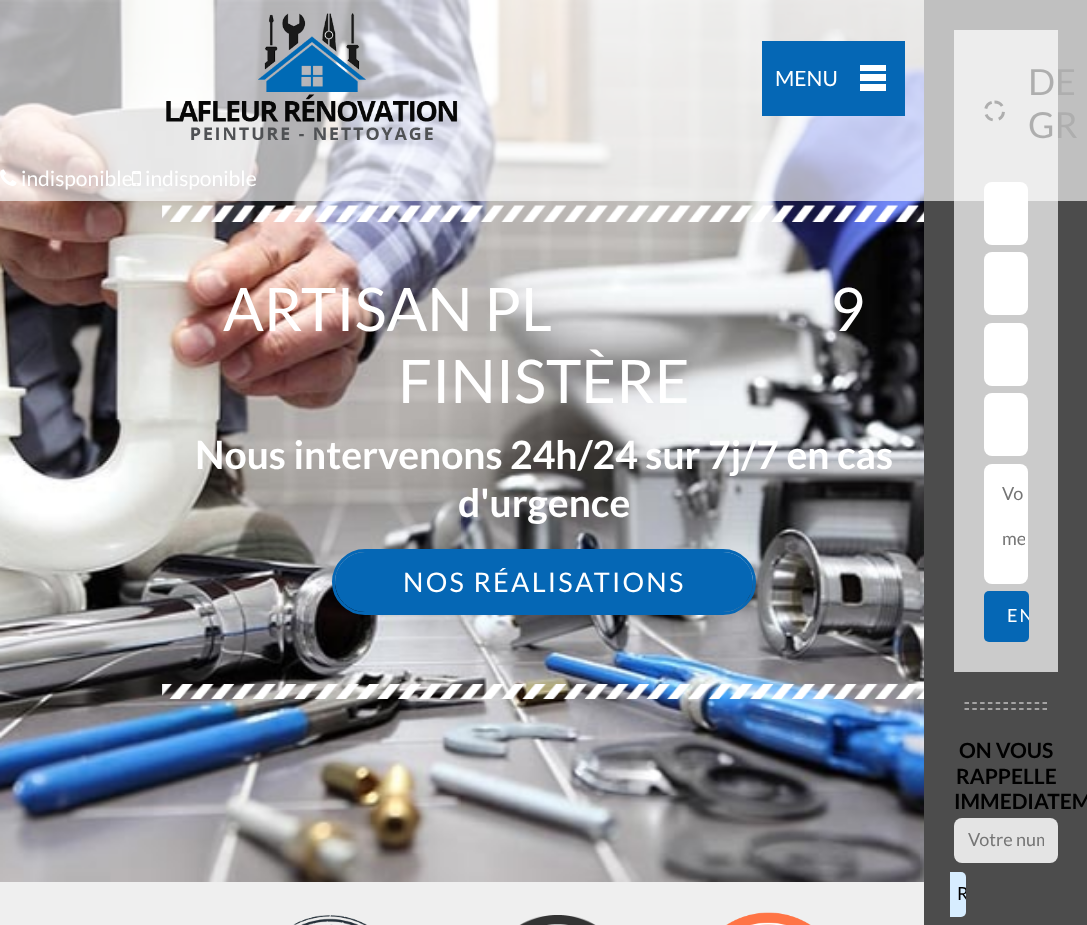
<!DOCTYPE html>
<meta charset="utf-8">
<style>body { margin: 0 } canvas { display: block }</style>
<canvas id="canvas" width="1087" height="925"></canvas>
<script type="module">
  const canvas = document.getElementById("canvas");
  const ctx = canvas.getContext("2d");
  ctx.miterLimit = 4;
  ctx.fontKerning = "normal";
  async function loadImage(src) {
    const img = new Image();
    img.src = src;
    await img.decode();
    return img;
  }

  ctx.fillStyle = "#efefef";
  ctx.fillRect(0, 0, 1087, 925);
  ctx.fillStyle = "#4c4c4c";
  ctx.fillRect(924, 0, 163, 925);
  ctx.fillStyle = "#cbcbcb";
  ctx.fillRect(954, 30, 104, 642);
  ctx.beginPath();
  ctx.moveTo(994.5, 102);
  ctx.bezierCurveTo(1006.5, 102, 1006.5, 120, 994.5, 120);
  ctx.bezierCurveTo(982.5, 120, 982.5, 102, 994.5, 102);
  ctx.closePath();
  ctx.strokeStyle = "#181918";
  ctx.lineWidth = 3;
  ctx.setLineDash([9, 6]);
  ctx.stroke();
  ctx.font = "36px Lato";
  ctx.fillStyle = "#181918";
  ctx.fillText("DE", 1028, 95);
  ctx.fillText("GR", 1028, 138);
  ctx.fillStyle = "#ffffff";
  ctx.beginPath();
  ctx.roundRect(984, 182, 44, 63, 8);
  ctx.fill();
  ctx.drawImage(await loadImage("img4.png"), 0, 0, 924, 882);
  ctx.fillStyle = "rgba(255, 255, 255, 0.65)";
  ctx.fillRect(0, 0, 1087, 201);
  ctx.drawImage(await loadImage("img1.png"), 166, 13, 292, 127);
  ctx.fillStyle = "#0567b5";
  ctx.fillRect(762, 41, 143, 75);
  ctx.fillStyle = "#ffffff";
  ctx.fillRect(860, 65, 26, 6);
  ctx.fillRect(860, 74, 26, 7);
  ctx.fillRect(860, 84, 26, 7);
  ctx.font = "21px Lato";
  ctx.fillText("MENU", 775, 86);
  ctx.drawImage(await loadImage("img2.png"), 0, 169, 17, 17);
  ctx.fillText("indisponible", 21, 186);
  ctx.drawImage(await loadImage("img3.png"), 132, 171, 9, 15);
  ctx.fillText("indisponible", 145, 186);
  ctx.beginPath();
  ctx.roundRect(984, 252, 44, 63, 8);
  ctx.fill();
  ctx.beginPath();
  ctx.roundRect(984, 323, 44, 63, 8);
  ctx.fill();
  ctx.beginPath();
  ctx.roundRect(984, 393, 44, 63, 8);
  ctx.fill();
  ctx.beginPath();
  ctx.roundRect(984, 464, 44, 120, 8);
  ctx.fill();
  ctx.font = "18px Lato";
  ctx.fillStyle = "#757575";
  ctx.fillText("Vo", 1002, 500);
  ctx.save();
  ctx.beginPath();
  ctx.roundRect(987, 467, 38, 114, 5);
  ctx.clip();
  ctx.fillText("me", 1002, 545);
  ctx.restore();
  ctx.fillStyle = "#0567b5";
  ctx.beginPath();
  ctx.roundRect(984, 591, 45, 51, 5);
  ctx.fill();
  ctx.save();
  ctx.beginPath();
  ctx.roundRect(984, 591, 45, 51, 5);
  ctx.clip();
  ctx.letterSpacing = "2px";
  ctx.fillStyle = "#ffffff";
  ctx.fillText("EN", 1007, 622);
  ctx.restore();
  ctx.beginPath();
  ctx.moveTo(964.5, 703);
  ctx.lineTo(1047, 703);
  ctx.strokeStyle = "#c1c0c0";
  ctx.lineWidth = 1.5;
  ctx.setLineDash([4.5, 3.3]);
  ctx.stroke();
  ctx.beginPath();
  ctx.moveTo(964.5, 709);
  ctx.lineTo(1047, 709);
  ctx.stroke();
  ctx.font = "bold 21px Lato";
  ctx.fillStyle = "#000000";
  ctx.fillText("ON VOUS", 959, 758);
  ctx.fillText("RAPPELLE", 956, 784);
  ctx.fillText("IMMEDIATEM", 954, 809);
  ctx.fillStyle = "#e4e4e4";
  ctx.beginPath();
  ctx.roundRect(954, 818, 104, 45, 8);
  ctx.fill();
  ctx.save();
  ctx.beginPath();
  ctx.rect(968, 828, 76, 23);
  ctx.clip();
  ctx.font = "18px Lato";
  ctx.fillStyle = "#757575";
  ctx.fillText("Votre num", 968, 846);
  ctx.restore();
  ctx.fillStyle = "#d7edff";
  ctx.beginPath();
  ctx.roundRect(950, 872, 16, 45, [0, 5, 5, 0]);
  ctx.fill();
  ctx.save();
  ctx.beginPath();
  ctx.roundRect(950, 872, 16, 45, [0, 5, 5, 0]);
  ctx.clip();
  ctx.letterSpacing = "2px";
  ctx.font = "18px Lato";
  ctx.fillStyle = "#000000";
  ctx.fillText("R", 957, 900);
  ctx.restore();
  ctx.drawImage(await loadImage("img5.png"), 162, 205, 762, 17);
  ctx.font = "60px Lato";
  ctx.fillStyle = "#ffffff";
  ctx.fillText("ARTISAN PL", 223, 331);
  ctx.fillText("9", 830, 331);
  ctx.fillText("FINISTÈRE", 398, 403);
  ctx.font = "bold 39px Lato";
  ctx.fillText("Nous intervenons 24h/24 sur 7j/7 en cas", 195, 469);
  ctx.fillText("d'urgence", 458, 517);
  ctx.beginPath();
  ctx.roundRect(333.5, 550.5, 421, 63, 31.5);
  ctx.strokeStyle = "#0567b5";
  ctx.lineWidth = 3;
  ctx.setLineDash([]);
  ctx.stroke();
  ctx.fillStyle = "#0567b5";
  ctx.beginPath();
  ctx.roundRect(335, 552, 418, 60, 30);
  ctx.fill();
  ctx.letterSpacing = "2.25px";
  ctx.font = "27px Lato";
  ctx.fillStyle = "#ffffff";
  ctx.fillText("NOS RÉALISATIONS", 403, 592);
  ctx.drawImage(await loadImage("img6.png"), 162, 684, 762, 15);
  ctx.drawImage(await loadImage("img7.png"), 293, 915, 74, 10);
  ctx.drawImage(await loadImage("img8.png"), 519, 915, 77, 10);
  ctx.drawImage(await loadImage("img9.png"), 726, 912, 85, 13);
</script>
